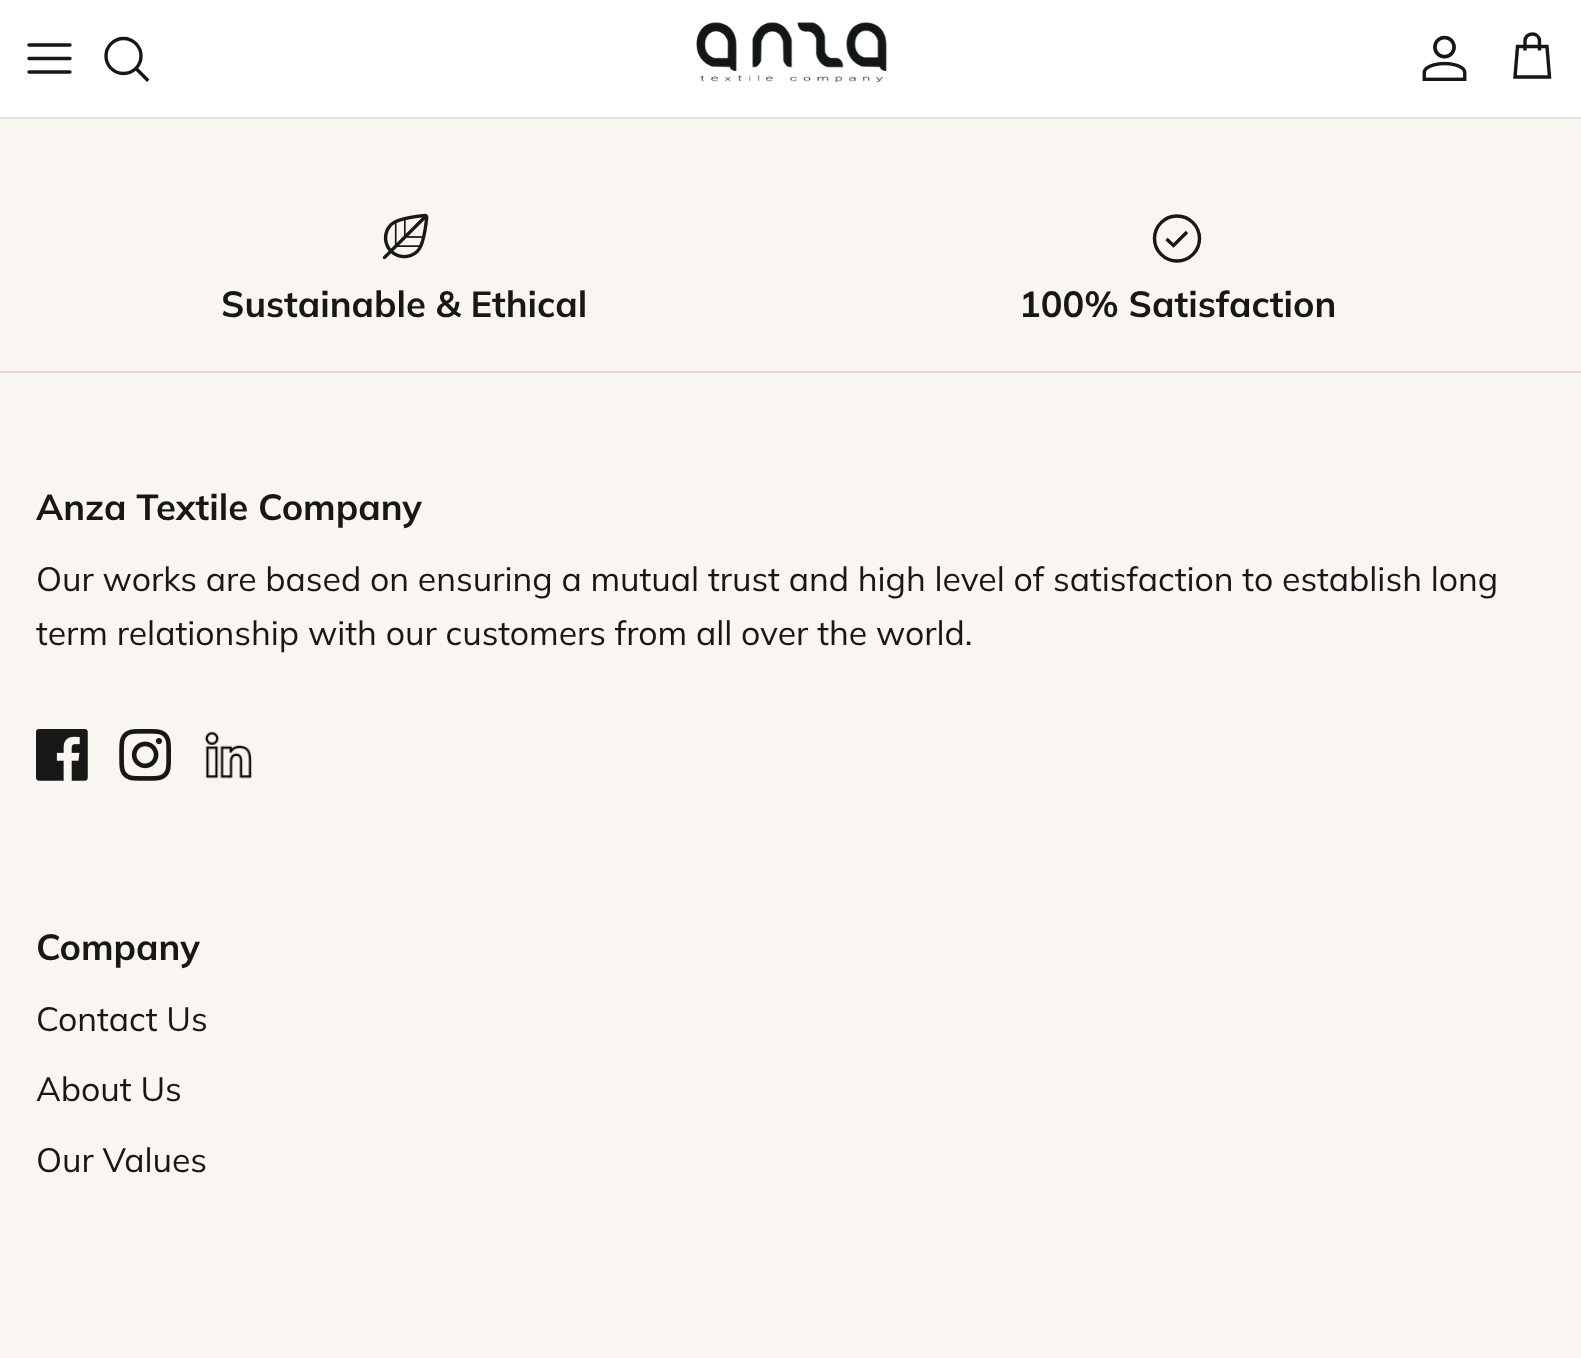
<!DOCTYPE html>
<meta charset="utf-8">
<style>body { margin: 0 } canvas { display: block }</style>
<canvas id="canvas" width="1581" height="1358"></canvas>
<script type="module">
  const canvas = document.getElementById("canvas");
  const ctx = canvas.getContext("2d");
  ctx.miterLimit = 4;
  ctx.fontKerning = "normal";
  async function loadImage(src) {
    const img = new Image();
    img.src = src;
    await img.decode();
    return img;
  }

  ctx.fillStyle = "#f9f5f0";
  ctx.fillRect(0, 0, 1581, 1358);
  ctx.fillStyle = "#ffffff";
  ctx.fillRect(0, 0, 1581, 117);
  ctx.fillStyle = "#dfe3e8";
  ctx.fillRect(0, 117, 1581, 2);
  ctx.beginPath();
  ctx.moveTo(29, 58.5);
  ctx.lineTo(70, 58.5);
  ctx.moveTo(29, 45);
  ctx.lineTo(70, 45);
  ctx.moveTo(29, 72);
  ctx.lineTo(70, 72);
  ctx.strokeStyle = "#171717";
  ctx.lineWidth = 3.4;
  ctx.lineCap = "round";
  ctx.lineJoin = "round";
  ctx.stroke();
  ctx.beginPath();
  ctx.arc(123.5, 56, 17.5, 0, Math.PI * 2);
  ctx.stroke();
  ctx.beginPath();
  ctx.moveTo(137, 69.5);
  ctx.lineTo(147, 79.5);
  ctx.lineCap = "square";
  ctx.lineJoin = "miter";
  ctx.stroke();
  ctx.drawImage(await loadImage("img1.png"), 696, 22, 191, 61);
  ctx.drawImage(await loadImage("img2.png"), 1422, 35, 45, 46);
  ctx.beginPath();
  ctx.moveTo(1539.5, 50.5);
  ctx.lineTo(1539.5, 41);
  ctx.bezierCurveTo(1539.5, 37, 1536.5, 34, 1532, 34);
  ctx.bezierCurveTo(1528, 34, 1525, 37, 1525, 41);
  ctx.lineTo(1525, 50.5);
  ctx.moveTo(1517.5, 46.5);
  ctx.lineTo(1547, 46.5);
  ctx.lineTo(1549.5, 77);
  ctx.lineTo(1515, 77);
  ctx.closePath();
  ctx.lineCap = "butt";
  ctx.stroke();
  ctx.drawImage(await loadImage("img3.png"), 382, 213, 47, 47);
  ctx.font = "bold 36.25px Muli";
  ctx.fillStyle = "#171717";
  ctx.fillText("Sustainable & Ethical", 221, 317);
  ctx.beginPath();
  ctx.arc(1177, 238.5, 22.5, 0, Math.PI * 2);
  ctx.stroke();
  ctx.beginPath();
  ctx.moveTo(1187, 232);
  ctx.lineTo(1173.5, 245.5);
  ctx.lineTo(1166.5, 239);
  ctx.stroke();
  ctx.fillText("100% Satisfaction", 1019, 317);
  ctx.fillStyle = "#ecd6d1";
  ctx.fillRect(0, 371, 1581, 2);
  ctx.fillStyle = "#171717";
  ctx.fillText("Anza Textile Company", 36, 520);
  ctx.font = "33.75px Muli";
  ctx.fillText("Our works are based on ensuring a mutual trust and high level of satisfaction to establish long", 36, 591);
  ctx.fillText("term relationship with our customers from all over the world.", 36, 645);
  ctx.drawImage(await loadImage("img4.png"), 36, 729, 52, 52);
  ctx.drawImage(await loadImage("img5.png"), 119, 729, 52, 52);
  ctx.drawImage(await loadImage("img6.png"), 204, 731, 48, 48);
  ctx.font = "bold 36.25px Muli";
  ctx.fillText("Company", 36, 960);
  ctx.font = "33.75px Muli";
  ctx.fillText("Contact Us", 36, 1031);
  ctx.fillText("About Us", 36, 1101);
  ctx.fillText("Our Values", 36, 1172);
</script>
